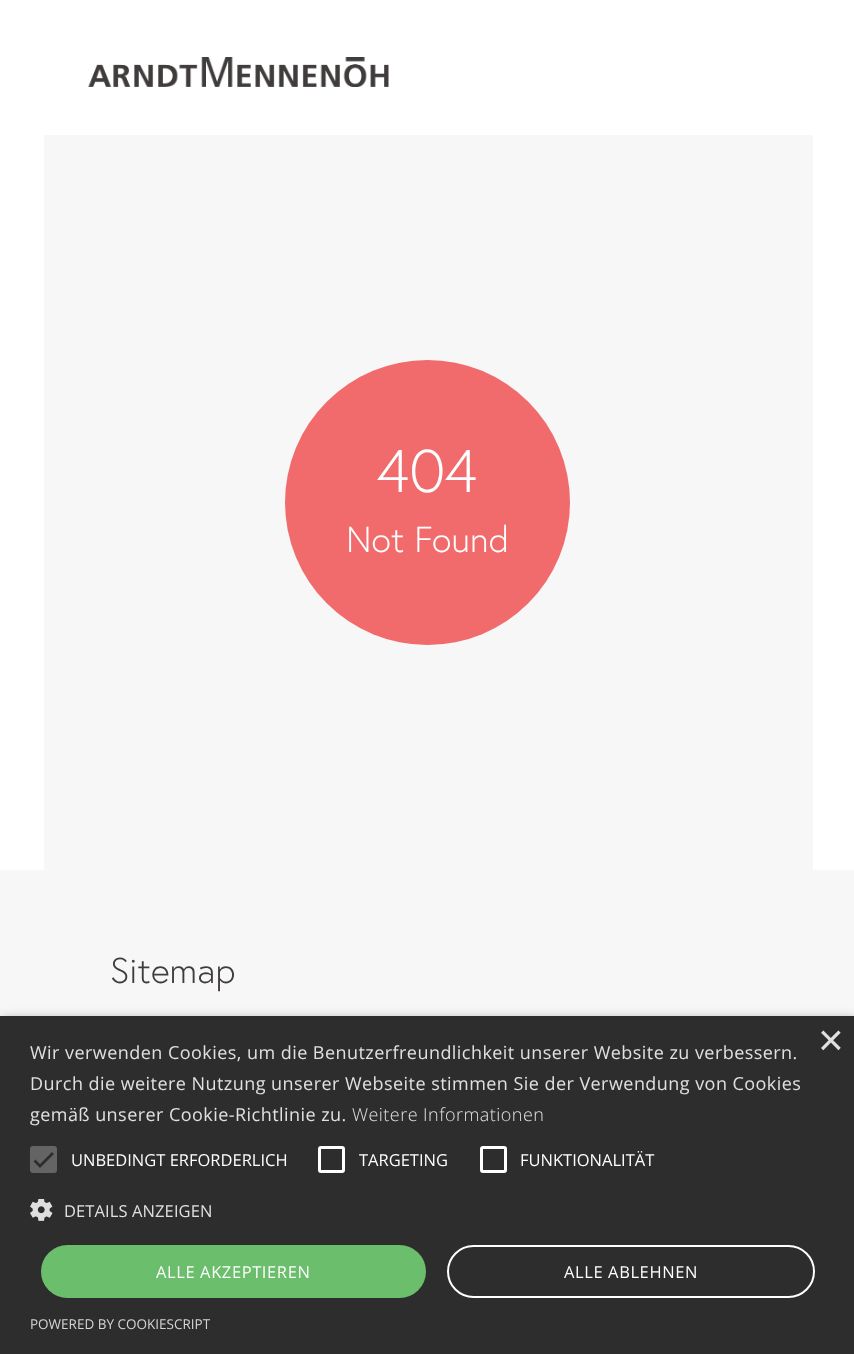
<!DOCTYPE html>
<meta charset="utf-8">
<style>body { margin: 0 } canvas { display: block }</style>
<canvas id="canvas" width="854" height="1354"></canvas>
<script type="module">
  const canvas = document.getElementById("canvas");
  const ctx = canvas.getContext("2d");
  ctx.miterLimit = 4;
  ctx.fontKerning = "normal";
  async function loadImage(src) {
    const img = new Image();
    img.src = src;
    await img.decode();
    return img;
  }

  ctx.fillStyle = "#ffffff";
  ctx.fillRect(0, 0, 854, 1354);
  ctx.drawImage(await loadImage("img1.png"), 88, 57, 301, 30);
  ctx.fillStyle = "#f7f7f7";
  ctx.fillRect(44, 135, 769, 735);
  ctx.fillStyle = "#f16b6c";
  ctx.beginPath();
  ctx.arc(427.5, 502.5, 142.5, 0, Math.PI * 2);
  ctx.fill();
  ctx.font = "300 60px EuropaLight";
  ctx.fillStyle = "#fefefe";
  ctx.fillText("404", 377, 492);
  ctx.font = "300 36px EuropaLight";
  ctx.fillText("Not Found", 346, 552);
  ctx.fillStyle = "#f7f7f7";
  ctx.fillRect(0, 870, 854, 146);
  ctx.fillStyle = "#413c3c";
  ctx.fillText("Sitemap", 110, 983);
  ctx.fillStyle = "rgba(0, 0, 0, 0.35)";
  ctx.filter = "blur(6px)";
  ctx.beginPath();
  ctx.rect(2, 1019, 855, 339);
  ctx.fill();
  ctx.filter = "none";
  ctx.fillStyle = "#2d2d2d";
  ctx.fillRect(0, 1016, 854, 338);
  ctx.font = "44px Liberation Sans";
  ctx.fillStyle = "#e0e0e0";
  ctx.fillText("×", 818, 1055);
  ctx.letterSpacing = "0.45px";
  ctx.font = "18px Open Sans";
  ctx.fillText("Wir verwenden Cookies, um die Benutzerfreundlichkeit unserer Website zu verbessern.", 30, 1059);
  ctx.fillText("Durch die weitere Nutzung unserer Webseite stimmen Sie der Verwendung von Cookies", 30, 1090);
  ctx.fillText("gemäß unserer Cookie-Richtlinie zu.", 30, 1121);
  ctx.font = "300 18px Open Sans";
  ctx.fillText("Weitere Informationen", 352, 1121);
  ctx.fillStyle = "#646464";
  ctx.beginPath();
  ctx.roundRect(30, 1146, 27, 27, 3);
  ctx.fill();
  ctx.beginPath();
  ctx.moveTo(34.5, 1160.5);
  ctx.lineTo(40, 1166);
  ctx.lineTo(53, 1153);
  ctx.strokeStyle = "#2d2d2d";
  ctx.lineWidth = 2.7;
  ctx.stroke();
  ctx.letterSpacing = "0px";
  ctx.font = "16.5px Open Sans";
  ctx.fillStyle = "#fefefe";
  ctx.fillText("UNBEDINGT ERFORDERLICH", 71, 1166);
  ctx.beginPath();
  ctx.roundRect(319.5, 1147.5, 24, 24, 1.5);
  ctx.strokeStyle = "#ffffff";
  ctx.lineWidth = 3;
  ctx.stroke();
  ctx.fillText("TARGETING", 359, 1166);
  ctx.beginPath();
  ctx.roundRect(481.5, 1147.5, 24, 24, 1.5);
  ctx.stroke();
  ctx.fillText("FUNKTIONALITÄT", 520, 1166);
  ctx.drawImage(await loadImage("img2.png"), 30, 1199, 23, 22);
  ctx.letterSpacing = "0.1px";
  ctx.fillStyle = "#e0e0e0";
  ctx.fillText("DETAILS ANZEIGEN", 64, 1217);
  ctx.fillStyle = "#6bbe6b";
  ctx.beginPath();
  ctx.roundRect(41, 1245, 385, 53, 26.5);
  ctx.fill();
  ctx.letterSpacing = "0.6px";
  ctx.fillStyle = "#fefefe";
  ctx.fillText("ALLE AKZEPTIEREN", 156, 1278);
  ctx.beginPath();
  ctx.roundRect(448, 1246, 366, 51, 25.5);
  ctx.lineWidth = 2;
  ctx.stroke();
  ctx.fillText("ALLE ABLEHNEN", 564, 1278);
  ctx.letterSpacing = "0px";
  ctx.font = "13.5px Open Sans";
  ctx.fillStyle = "#d5d5d5";
  ctx.fillText("POWERED BY COOKIESCRIPT", 30, 1329);
</script>
